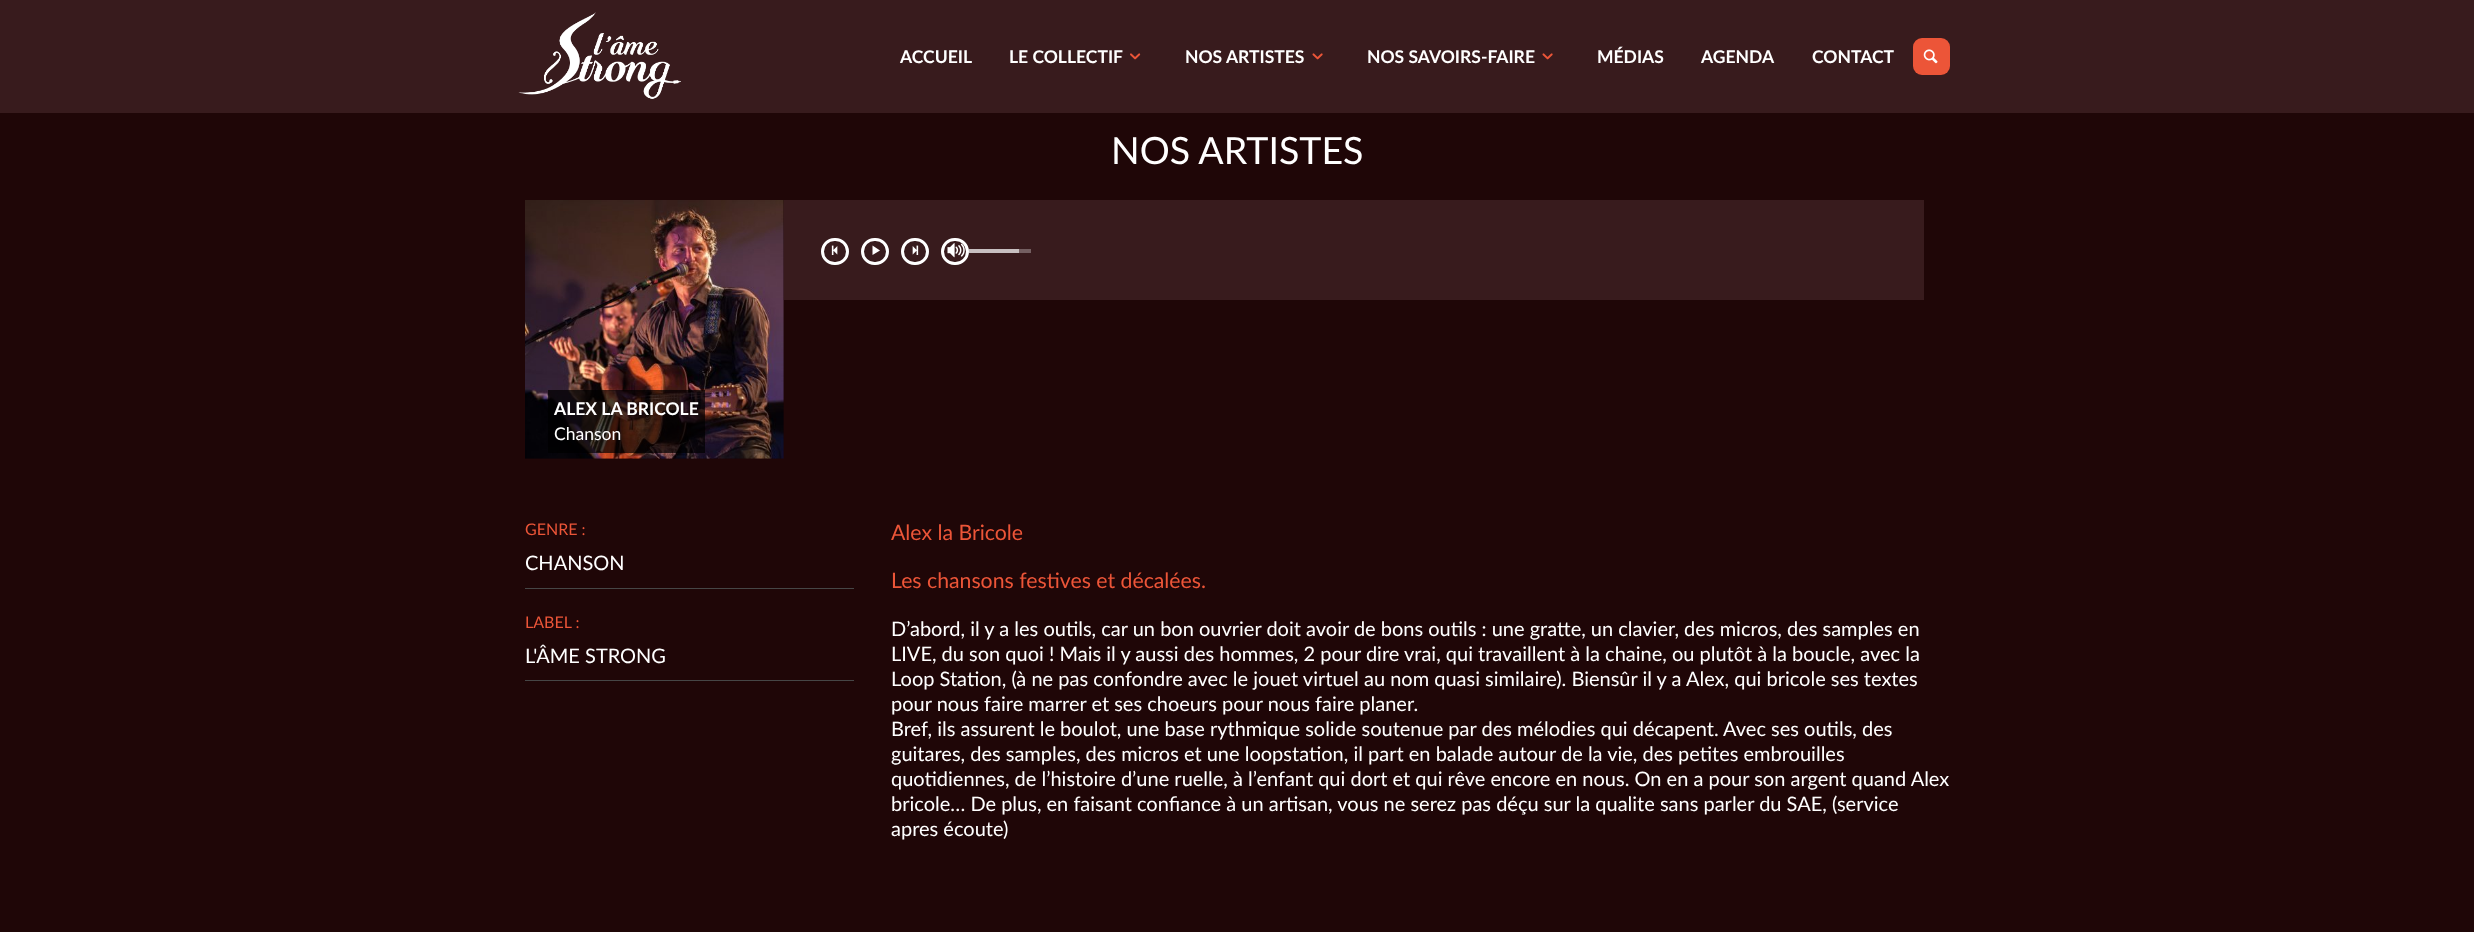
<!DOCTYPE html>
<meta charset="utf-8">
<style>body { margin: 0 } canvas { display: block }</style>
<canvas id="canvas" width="2474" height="932"></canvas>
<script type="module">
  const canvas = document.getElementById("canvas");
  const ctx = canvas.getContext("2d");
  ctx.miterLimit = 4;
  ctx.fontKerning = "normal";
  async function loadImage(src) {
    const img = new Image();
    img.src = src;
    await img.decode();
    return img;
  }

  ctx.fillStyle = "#1f0607";
  ctx.fillRect(0, 0, 2474, 932);
  ctx.fillStyle = "#381b1d";
  ctx.fillRect(0, 0, 2474, 113);
  ctx.drawImage(await loadImage("img1.png"), 518, 12, 163, 87);
  ctx.font = "bold 17.5px Lato";
  ctx.fillStyle = "#ffffff";
  ctx.fillText("ACCUEIL", 900, 63);
  ctx.fillText("LE COLLECTIF", 1009, 63);
  ctx.drawImage(await loadImage("img2.png"), 1130, 53, 11, 7);
  ctx.fillText("NOS ARTISTES", 1185, 63);
  ctx.drawImage(await loadImage("img3.png"), 1312, 53, 11, 7);
  ctx.fillText("NOS SAVOIRS-FAIRE", 1367, 63);
  ctx.drawImage(await loadImage("img3.png"), 1542, 53, 11, 7);
  ctx.fillText("MÉDIAS", 1597, 63);
  ctx.fillText("AGENDA", 1701, 63);
  ctx.fillText("CONTACT", 1812, 63);
  ctx.fillStyle = "#ec5538";
  ctx.beginPath();
  ctx.roundRect(1913, 38, 37, 37, 9);
  ctx.fill();
  ctx.drawImage(await loadImage("img4.png"), 1923, 49, 15, 15);
  ctx.font = "37.5px Lato";
  ctx.fillStyle = "#ffffff";
  ctx.fillText("NOS ARTISTES", 1111, 164);
  ctx.fillStyle = "#381b1d";
  ctx.fillRect(784, 200, 1140, 100);
  ctx.beginPath();
  ctx.roundRect(822.5, 239.5, 25, 24, 12);
  ctx.strokeStyle = "#ffffff";
  ctx.lineWidth = 3;
  ctx.stroke();
  ctx.drawImage(await loadImage("img5.png"), 831, 245, 7, 10);
  ctx.beginPath();
  ctx.roundRect(862.5, 239.5, 25, 24, 12);
  ctx.stroke();
  ctx.fillStyle = "#ffffff";
  ctx.beginPath();
  ctx.moveTo(872.5, 245.5);
  ctx.lineTo(880, 250.5);
  ctx.lineTo(872.5, 255);
  ctx.closePath();
  ctx.fill();
  ctx.beginPath();
  ctx.roundRect(902.5, 239.5, 25, 24, 12);
  ctx.stroke();
  ctx.drawImage(await loadImage("img6.png"), 912, 245, 7, 10);
  ctx.beginPath();
  ctx.roundRect(942.5, 239.5, 25, 24, 12);
  ctx.stroke();
  ctx.drawImage(await loadImage("img7.png"), 947, 243, 18, 15);
  ctx.fillStyle = "#745f61";
  ctx.fillRect(1019, 249, 12, 4);
  ctx.fillStyle = "#c7bfc0";
  ctx.fillRect(969, 249, 50, 4);
  ctx.drawImage(await loadImage("img8.png"), 525, 200, 259, 259);
  ctx.fillStyle = "rgba(0, 0, 0, 0.7)";
  ctx.fillRect(548, 390, 157, 63);
  ctx.font = "bold 17.5px Lato";
  ctx.fillStyle = "#ffffff";
  ctx.fillText("ALEX LA BRICOLE", 554, 415);
  ctx.font = "17.5px Lato";
  ctx.fillText("Chanson", 554, 440);
  ctx.fillStyle = "#464646";
  ctx.fillRect(525, 588, 329, 1);
  ctx.font = "16px Lato";
  ctx.fillStyle = "#ec5538";
  ctx.fillText("GENRE :", 525, 535);
  ctx.font = "20px Lato";
  ctx.fillStyle = "#ffffff";
  ctx.fillText("CHANSON", 525, 570);
  ctx.fillStyle = "#464646";
  ctx.fillRect(525, 680, 329, 1);
  ctx.font = "16px Lato";
  ctx.fillStyle = "#ec5538";
  ctx.fillText("LABEL :", 525, 628);
  ctx.font = "20px Lato";
  ctx.fillStyle = "#ffffff";
  ctx.fillText("L'ÂME STRONG", 525, 663);
  ctx.font = "21.25px Lato";
  ctx.fillStyle = "#ec5538";
  ctx.fillText("Alex la Bricole", 891, 540);
  ctx.fillText("Les chansons festives et décalées.", 891, 588);
  ctx.font = "20px Lato";
  ctx.fillStyle = "#ffffff";
  ctx.fillText("D’abord, il y a les outils, car un bon ouvrier doit avoir de bons outils : une gratte, un clavier, des micros, des samples en", 891, 636);
  ctx.fillText("LIVE, du son quoi ! Mais il y aussi des hommes, 2 pour dire vrai, qui travaillent à la chaine, ou plutôt à la boucle, avec la", 891, 661);
  ctx.fillText("Loop Station, (à ne pas confondre avec le jouet virtuel au nom quasi similaire). Biensûr il y a Alex, qui bricole ses textes", 891, 686);
  ctx.fillText("pour nous faire marrer et ses choeurs pour nous faire planer.", 891, 711);
  ctx.fillText("Bref, ils assurent le boulot, une base rythmique solide soutenue par des mélodies qui décapent. Avec ses outils, des", 891, 736);
  ctx.fillText("guitares, des samples, des micros et une loopstation, il part en balade autour de la vie, des petites embrouilles", 891, 761);
  ctx.fillText("quotidiennes, de l’histoire d’une ruelle, à l’enfant qui dort et qui rêve encore en nous. On en a pour son argent quand Alex", 891, 786);
  ctx.fillText("bricole… De plus, en faisant confiance à un artisan, vous ne serez pas déçu sur la qualite sans parler du SAE, (service", 891, 811);
  ctx.fillText("apres écoute)", 891, 836);
</script>
